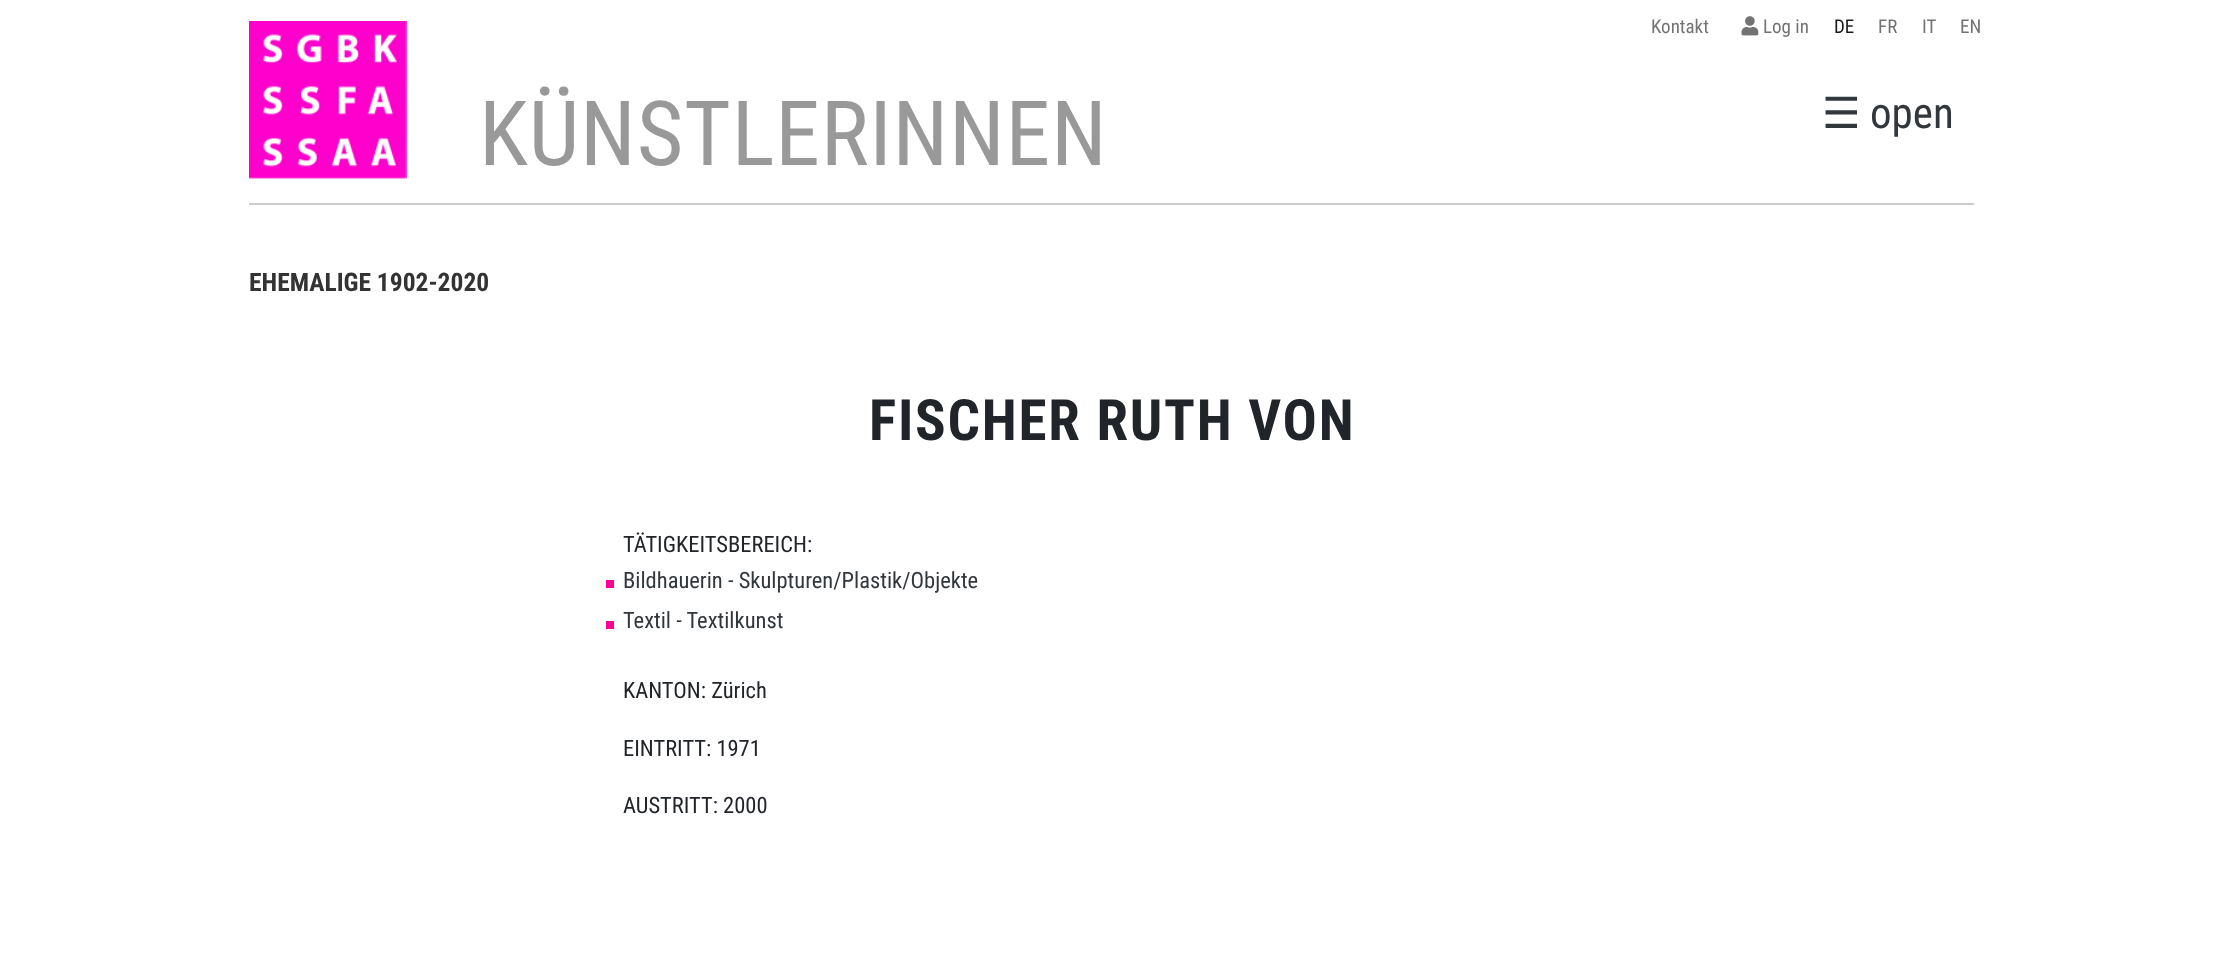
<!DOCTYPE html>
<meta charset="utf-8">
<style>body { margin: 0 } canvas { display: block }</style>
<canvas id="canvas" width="2222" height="975"></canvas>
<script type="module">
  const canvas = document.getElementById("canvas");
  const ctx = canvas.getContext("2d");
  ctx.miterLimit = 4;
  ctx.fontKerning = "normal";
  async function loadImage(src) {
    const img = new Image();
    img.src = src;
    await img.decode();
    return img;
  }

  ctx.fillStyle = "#ffffff";
  ctx.fillRect(0, 0, 2222, 975);
  ctx.font = "19px Roboto Condensed";
  ctx.fillStyle = "#737373";
  ctx.fillText("Kontakt", 1651, 33);
  ctx.drawImage(await loadImage("img1.png"), 1741, 16, 18, 20);
  ctx.fillText("Log in", 1763, 33);
  ctx.fillStyle = "#1a1a1a";
  ctx.fillText("DE", 1834, 33);
  ctx.fillStyle = "#737373";
  ctx.fillText("FR", 1878, 33);
  ctx.fillText("IT", 1922, 33);
  ctx.fillText("EN", 1960, 33);
  ctx.drawImage(await loadImage("img2.png"), 249, 21, 158, 158);
  ctx.letterSpacing = "0.75px";
  ctx.font = "90px Roboto Condensed";
  ctx.fillStyle = "#999999";
  ctx.fillText("KÜNSTLERINNEN", 479, 165);
  ctx.letterSpacing = "0px";
  ctx.font = "43px DejaVu Sans";
  ctx.fillStyle = "#32373c";
  ctx.fillText("☰", 1822, 128);
  ctx.font = "43px Roboto Condensed";
  ctx.fillText("open", 1870, 128);
  ctx.fillStyle = "#cccccc";
  ctx.fillRect(249, 203, 1725, 2);
  ctx.font = "bold 25.5px Roboto Condensed";
  ctx.fillStyle = "#333333";
  ctx.fillText("EHEMALIGE 1902-2020", 249, 291);
  ctx.letterSpacing = "1.75px";
  ctx.font = "bold 57px Roboto Condensed";
  ctx.fillStyle = "#212529";
  ctx.fillText("FISCHER RUTH VON", 869, 440);
  ctx.letterSpacing = "0px";
  ctx.font = "22.5px Roboto Condensed";
  ctx.fillText("TÄTIGKEITSBEREICH:", 623, 552);
  ctx.fillStyle = "#ff0099";
  ctx.fillRect(606, 580, 8, 8);
  ctx.fillStyle = "#32373c";
  ctx.fillText("Bildhauerin - Skulpturen/Plastik/Objekte", 623, 588);
  ctx.fillStyle = "#ff0099";
  ctx.fillRect(606, 621, 8, 8);
  ctx.fillStyle = "#32373c";
  ctx.fillText("Textil - Textilkunst", 623, 628);
  ctx.fillStyle = "#212529";
  ctx.fillText("KANTON: Zürich", 623, 698);
  ctx.fillText("EINTRITT: 1971", 623, 756);
  ctx.fillText("AUSTRITT: 2000", 623, 813);
</script>
